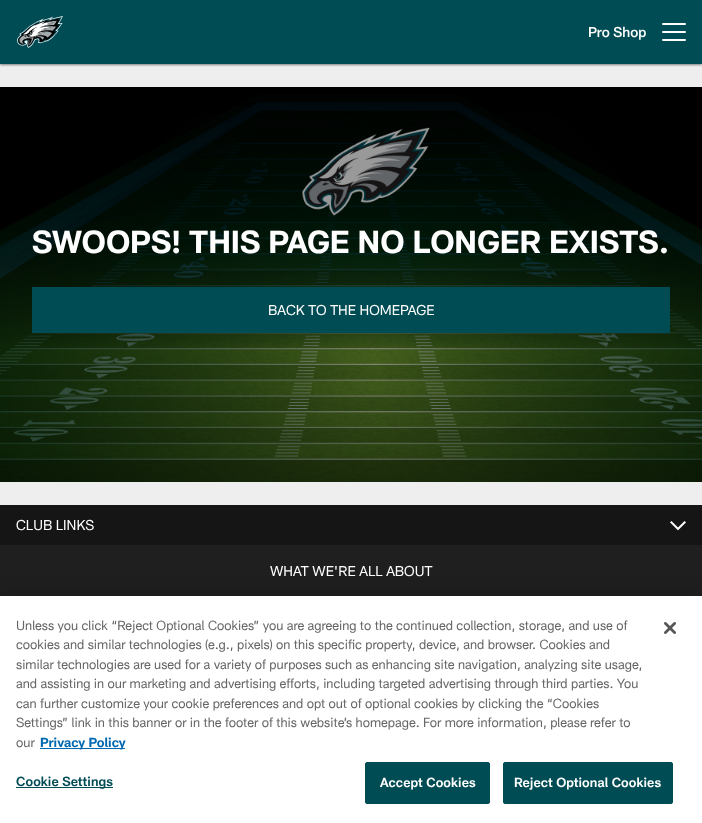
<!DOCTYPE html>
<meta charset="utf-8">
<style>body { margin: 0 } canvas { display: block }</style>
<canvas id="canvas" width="702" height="823"></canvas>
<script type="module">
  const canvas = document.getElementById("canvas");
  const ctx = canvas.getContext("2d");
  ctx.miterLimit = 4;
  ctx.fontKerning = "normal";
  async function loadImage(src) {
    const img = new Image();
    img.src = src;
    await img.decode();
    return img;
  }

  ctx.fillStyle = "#eeeeee";
  ctx.fillRect(0, 0, 702, 823);
  ctx.fillStyle = "rgba(0, 0, 0, 0.47)";
  ctx.filter = "blur(1px)";
  ctx.beginPath();
  ctx.rect(0, 1, 702, 64);
  ctx.fill();
  ctx.filter = "none";
  ctx.fillStyle = "#004c54";
  ctx.fillRect(0, 0, 702, 64);
  ctx.drawImage(await loadImage("img1.png"), 17, 16, 46, 32);
  ctx.font = "500 14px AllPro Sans";
  ctx.fillStyle = "#ffffff";
  ctx.fillText("Pro Shop", 588, 37);
  ctx.beginPath();
  ctx.roundRect(662, 31, 24, 2, 1);
  ctx.fill();
  ctx.beginPath();
  ctx.roundRect(662, 23, 24, 2, 1);
  ctx.fill();
  ctx.beginPath();
  ctx.roundRect(662, 39, 24, 2, 1);
  ctx.fill();
  ctx.drawImage(await loadImage("img2.png"), 0, 87, 702, 395);
  ctx.font = "bold 31.4px AllPro Sans";
  ctx.fillText("SWOOPS! THIS PAGE NO LONGER EXISTS.", 32, 253);
  ctx.fillStyle = "#004c54";
  ctx.fillRect(32, 287, 638, 46);
  ctx.font = "14px AllPro Sans";
  ctx.fillStyle = "#ffffff";
  ctx.fillText("BACK TO THE HOMEPAGE", 268, 315);
  ctx.fillStyle = "#1f1f1f";
  ctx.fillRect(0, 545, 702, 51);
  ctx.fillStyle = "#151515";
  ctx.fillRect(0, 505, 702, 40);
  ctx.fillStyle = "#ffffff";
  ctx.fillText("CLUB LINKS", 16, 530);
  ctx.drawImage(await loadImage("img3.png"), 670, 521, 16, 10);
  ctx.fillText("WHAT WE'RE ALL ABOUT", 270, 576);
  ctx.fillStyle = "rgba(0, 0, 0, 0.2)";
  ctx.filter = "blur(9px)";
  ctx.beginPath();
  ctx.rect(0, 596, 702, 227);
  ctx.fill();
  ctx.filter = "none";
  ctx.fillStyle = "#ffffff";
  ctx.fillRect(0, 596, 702, 227);
  ctx.font = "13px AllPro Sans";
  ctx.fillStyle = "#666666";
  ctx.fillText("Unless you click “Reject Optional Cookies” you are agreeing to the continued collection, storage, and use of", 16, 630);
  ctx.fillText("cookies and similar technologies (e.g., pixels) on this specific property, device, and browser. Cookies and", 16, 649);
  ctx.fillText("similar technologies are used for a variety of purposes such as enhancing site navigation, analyzing site usage,", 16, 669);
  ctx.fillText("and assisting in our marketing and advertising efforts, including targeted advertising through third parties. You", 16, 688);
  ctx.fillText("can further customize your cookie preferences and opt out of optional cookies by clicking the “Cookies", 16, 708);
  ctx.fillText("Settings” link in this banner or in the footer of this website’s homepage. For more information, please refer to", 16, 727);
  ctx.fillText("our", 16, 747);
  ctx.fillStyle = "#0067b1";
  ctx.fillRect(40, 748, 85, 1);
  ctx.font = "bold 13px AllPro Sans";
  ctx.fillText("Privacy Policy", 40, 747);
  ctx.fillStyle = "#004c54";
  ctx.fillRect(16, 787, 97, 1);
  ctx.letterSpacing = "0.1px";
  ctx.font = "600 13px AllPro Sans";
  ctx.fillText("Cookie Settings", 16, 786);
  ctx.beginPath();
  ctx.roundRect(365.5, 762.5, 124, 41, 1.5);
  ctx.fill();
  ctx.strokeStyle = "#004c54";
  ctx.stroke();
  ctx.fillStyle = "#ffffff";
  ctx.fillText("Accept Cookies", 380, 787);
  ctx.fillStyle = "#004c54";
  ctx.beginPath();
  ctx.roundRect(503.5, 762.5, 169, 41, 1.5);
  ctx.fill();
  ctx.stroke();
  ctx.fillStyle = "#ffffff";
  ctx.fillText("Reject Optional Cookies", 514, 787);
  ctx.drawImage(await loadImage("img4.png"), 664, 622, 12, 12);
</script>
